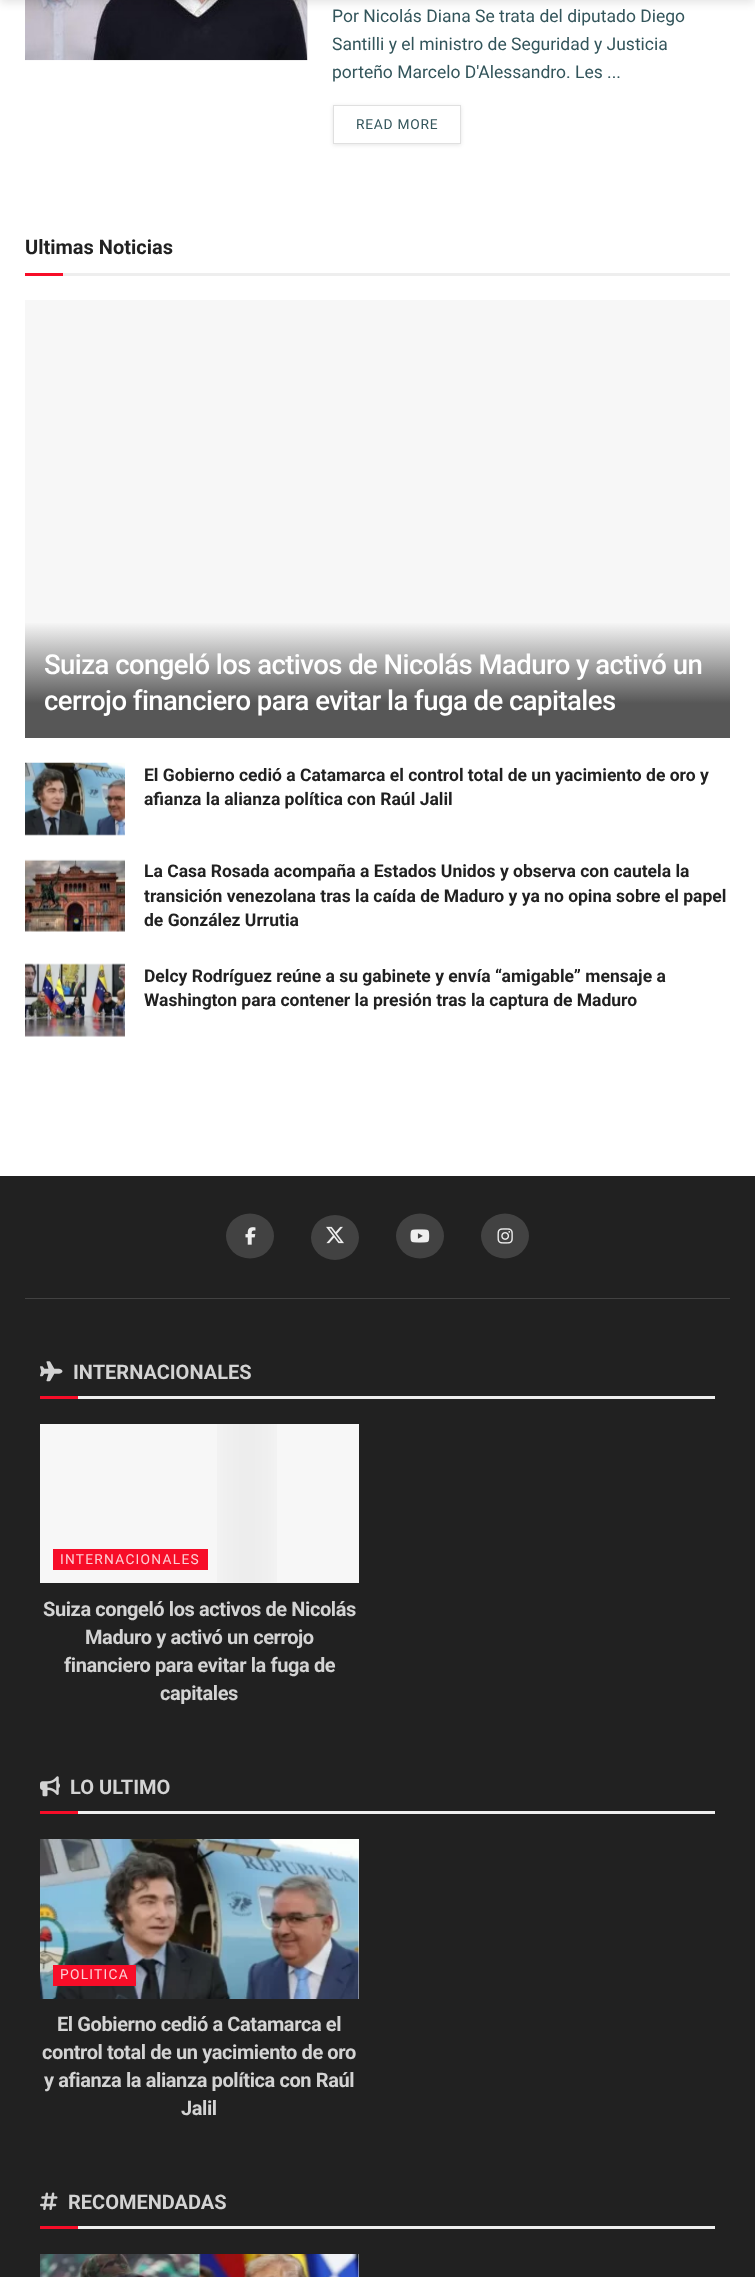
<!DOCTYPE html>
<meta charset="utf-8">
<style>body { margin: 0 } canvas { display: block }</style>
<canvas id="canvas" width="755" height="2277"></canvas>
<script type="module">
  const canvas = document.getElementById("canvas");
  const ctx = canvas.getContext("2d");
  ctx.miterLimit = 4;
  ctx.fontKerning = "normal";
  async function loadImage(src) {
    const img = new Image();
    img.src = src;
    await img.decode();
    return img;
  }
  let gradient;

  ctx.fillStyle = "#ffffff";
  ctx.fillRect(0, 0, 755, 2277);
  ctx.fillStyle = "#f7f7f7";
  ctx.fillRect(307, 0, 1, 60);
  ctx.drawImage(await loadImage("img1.png"), 25, 0, 283, 61);
  ctx.fillStyle = "rgba(0, 0, 0, 0.1)";
  ctx.filter = "blur(4px)";
  ctx.beginPath();
  ctx.rect(0, -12, 755, 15);
  ctx.fill();
  ctx.filter = "none";
  ctx.font = "17.5px Roboto";
  ctx.fillStyle = "#33555b";
  ctx.fillText("Por Nicolás Diana Se trata del diputado Diego", 332, 22);
  ctx.fillText("Santilli y el ministro de Seguridad y Justicia", 332, 50);
  ctx.fillText("porteño Marcelo D'Alessandro. Les ...", 332, 78);
  ctx.save();
  ctx.beginPath();
  ctx.moveTo(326, 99);
  ctx.lineTo(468, 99);
  ctx.lineTo(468, 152);
  ctx.lineTo(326, 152);
  ctx.closePath();
  ctx.moveTo(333, 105);
  ctx.lineTo(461, 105);
  ctx.lineTo(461, 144);
  ctx.lineTo(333, 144);
  ctx.closePath();
  ctx.clip("evenodd");
  ctx.fillStyle = "rgba(0, 0, 0, 0.1)";
  ctx.filter = "blur(2px)";
  ctx.beginPath();
  ctx.rect(333, 106, 128, 39);
  ctx.fill();
  ctx.filter = "none";
  ctx.restore();
  ctx.strokeStyle = "#e0e0e0";
  ctx.strokeRect(333.5, 105.5, 127, 38);
  ctx.letterSpacing = "0.75px";
  ctx.font = "13.75px Roboto";
  ctx.fillText("READ MORE", 356, 129);
  ctx.fillStyle = "#eeeeee";
  ctx.fillRect(63, 273, 667, 3);
  ctx.letterSpacing = "0px";
  ctx.font = "bold 20px Roboto";
  ctx.fillStyle = "#212121";
  ctx.fillText("Ultimas Noticias", 25, 254);
  ctx.fillStyle = "#f70d28";
  ctx.fillRect(25, 273, 38, 3);
  ctx.fillStyle = "#f7f7f7";
  ctx.fillRect(25, 300, 705, 323);
  gradient = ctx.createLinearGradient(378, 622, 378, 738);
  gradient.addColorStop(0, "#f7f7f7");
  gradient.addColorStop(0.7, "#575757");
  ctx.fillStyle = gradient;
  ctx.fillRect(25, 623, 705, 115);
  ctx.letterSpacing = "-0.55px";
  ctx.font = "500 27.5px Roboto";
  ctx.fillStyle = "#ffffff";
  ctx.fillText("Suiza congeló los activos de Nicolás Maduro y activó un", 44, 674);
  ctx.fillText("cerrojo financiero para evitar la fuga de capitales", 44, 710);
  ctx.drawImage(await loadImage("img2.png"), 25, 762, 100, 74);
  ctx.letterSpacing = "0px";
  ctx.font = "bold 17.5px Roboto";
  ctx.fillStyle = "#212121";
  ctx.fillText("El Gobierno cedió a Catamarca el control total de un yacimiento de oro y", 144, 781);
  ctx.fillText("afianza la alianza política con Raúl Jalil", 144, 805);
  ctx.fillStyle = "#f7f7f7";
  ctx.fillRect(25, 860, 100, 71);
  ctx.drawImage(await loadImage("img3.png"), 25, 859, 100, 73);
  ctx.fillStyle = "#212121";
  ctx.fillText("La Casa Rosada acompaña a Estados Unidos y observa con cautela la", 144, 877);
  ctx.fillText("transición venezolana tras la caída de Maduro y ya no opina sobre el papel", 144, 902);
  ctx.fillText("de González Urrutia", 144, 926);
  ctx.fillStyle = "#f7f7f7";
  ctx.fillRect(25, 964, 100, 72);
  ctx.drawImage(await loadImage("img4.png"), 25, 963, 100, 74);
  ctx.fillStyle = "#212121";
  ctx.fillText("Delcy Rodríguez reúne a su gabinete y envía “amigable” mensaje a", 144, 982);
  ctx.fillText("Washington para contener la presión tras la captura de Maduro", 144, 1006);
  ctx.fillRect(0, 1176, 755, 1101);
  ctx.fillStyle = "#424242";
  ctx.fillRect(25, 1298, 705, 1);
  ctx.beginPath();
  ctx.ellipse(250, 1236, 24, 22.5, 0, 0, Math.PI * 2);
  ctx.fill();
  ctx.drawImage(await loadImage("img5.png"), 245, 1227, 11, 18);
  ctx.beginPath();
  ctx.ellipse(335, 1237.5, 24, 22.5, 0, 0, Math.PI * 2);
  ctx.fill();
  ctx.drawImage(await loadImage("img6.png"), 326, 1226, 18, 18);
  ctx.beginPath();
  ctx.ellipse(420, 1236, 24, 22.5, 0, 0, Math.PI * 2);
  ctx.fill();
  ctx.drawImage(await loadImage("img7.png"), 410, 1229, 20, 14);
  ctx.beginPath();
  ctx.ellipse(505, 1236, 24, 22.5, 0, 0, Math.PI * 2);
  ctx.fill();
  ctx.drawImage(await loadImage("img8.png"), 497, 1228, 16, 16);
  ctx.fillStyle = "#eeeeee";
  ctx.fillRect(78, 1396, 637, 3);
  ctx.drawImage(await loadImage("img9.png"), 40, 1361, 23, 21);
  ctx.font = "bold 20px Roboto";
  ctx.fillStyle = "#d3d3d3";
  ctx.fillText("INTERNACIONALES", 73, 1379);
  ctx.fillStyle = "#f70d28";
  ctx.fillRect(40, 1396, 38, 3);
  ctx.fillStyle = "#f7f7f7";
  ctx.fillRect(40, 1424, 319, 159);
  ctx.drawImage(await loadImage("img10.png"), 217, 1424, 60, 159);
  ctx.fillStyle = "#f70d28";
  ctx.fillRect(53, 1549, 155, 21);
  ctx.letterSpacing = "1.25px";
  ctx.font = "13.75px Roboto";
  ctx.fillStyle = "#fdcfd4";
  ctx.fillText("INTERNACIONALES", 60, 1564);
  ctx.letterSpacing = "-0.4px";
  ctx.font = "bold 20px Roboto";
  ctx.fillStyle = "#d3d3d3";
  ctx.fillText("Suiza congeló los activos de Nicolás", 43, 1616);
  ctx.fillText("Maduro y activó un cerrojo", 85, 1644);
  ctx.fillText("financiero para evitar la fuga de", 64, 1672);
  ctx.fillText("capitales", 160, 1700);
  ctx.fillStyle = "#eeeeee";
  ctx.fillRect(78, 1811, 637, 3);
  ctx.drawImage(await loadImage("img11.png"), 40, 1776, 20, 21);
  ctx.letterSpacing = "0px";
  ctx.fillStyle = "#d3d3d3";
  ctx.fillText("LO ULTIMO", 70, 1794);
  ctx.fillStyle = "#f70d28";
  ctx.fillRect(40, 1811, 38, 3);
  ctx.fillStyle = "#f7f7f7";
  ctx.fillRect(358, 1839, 1, 160);
  ctx.drawImage(await loadImage("img12.png"), 40, 1839, 319, 160);
  ctx.fillStyle = "#f70d28";
  ctx.fillRect(53, 1965, 83, 21);
  ctx.letterSpacing = "1.25px";
  ctx.font = "13.75px Roboto";
  ctx.fillStyle = "#fdcfd4";
  ctx.fillText("POLITICA", 60, 1979);
  ctx.letterSpacing = "-0.4px";
  ctx.font = "bold 20px Roboto";
  ctx.fillStyle = "#d3d3d3";
  ctx.fillText("El Gobierno cedió a Catamarca el", 57, 2031);
  ctx.fillText("control total de un yacimiento de oro", 42, 2059);
  ctx.fillText("y afianza la alianza política con Raúl", 44, 2087);
  ctx.fillText("Jalil", 181, 2115);
  ctx.fillStyle = "#eeeeee";
  ctx.fillRect(78, 2226, 637, 3);
  ctx.drawImage(await loadImage("img13.png"), 40, 2192, 18, 18);
  ctx.letterSpacing = "0px";
  ctx.fillStyle = "#d3d3d3";
  ctx.fillText("RECOMENDADAS", 68, 2209);
  ctx.fillStyle = "#f70d28";
  ctx.fillRect(40, 2226, 38, 3);
  ctx.fillStyle = "#f7f7f7";
  ctx.fillRect(358, 2254, 1, 23);
  ctx.drawImage(await loadImage("img14.png"), 40, 2254, 319, 23);
</script>
